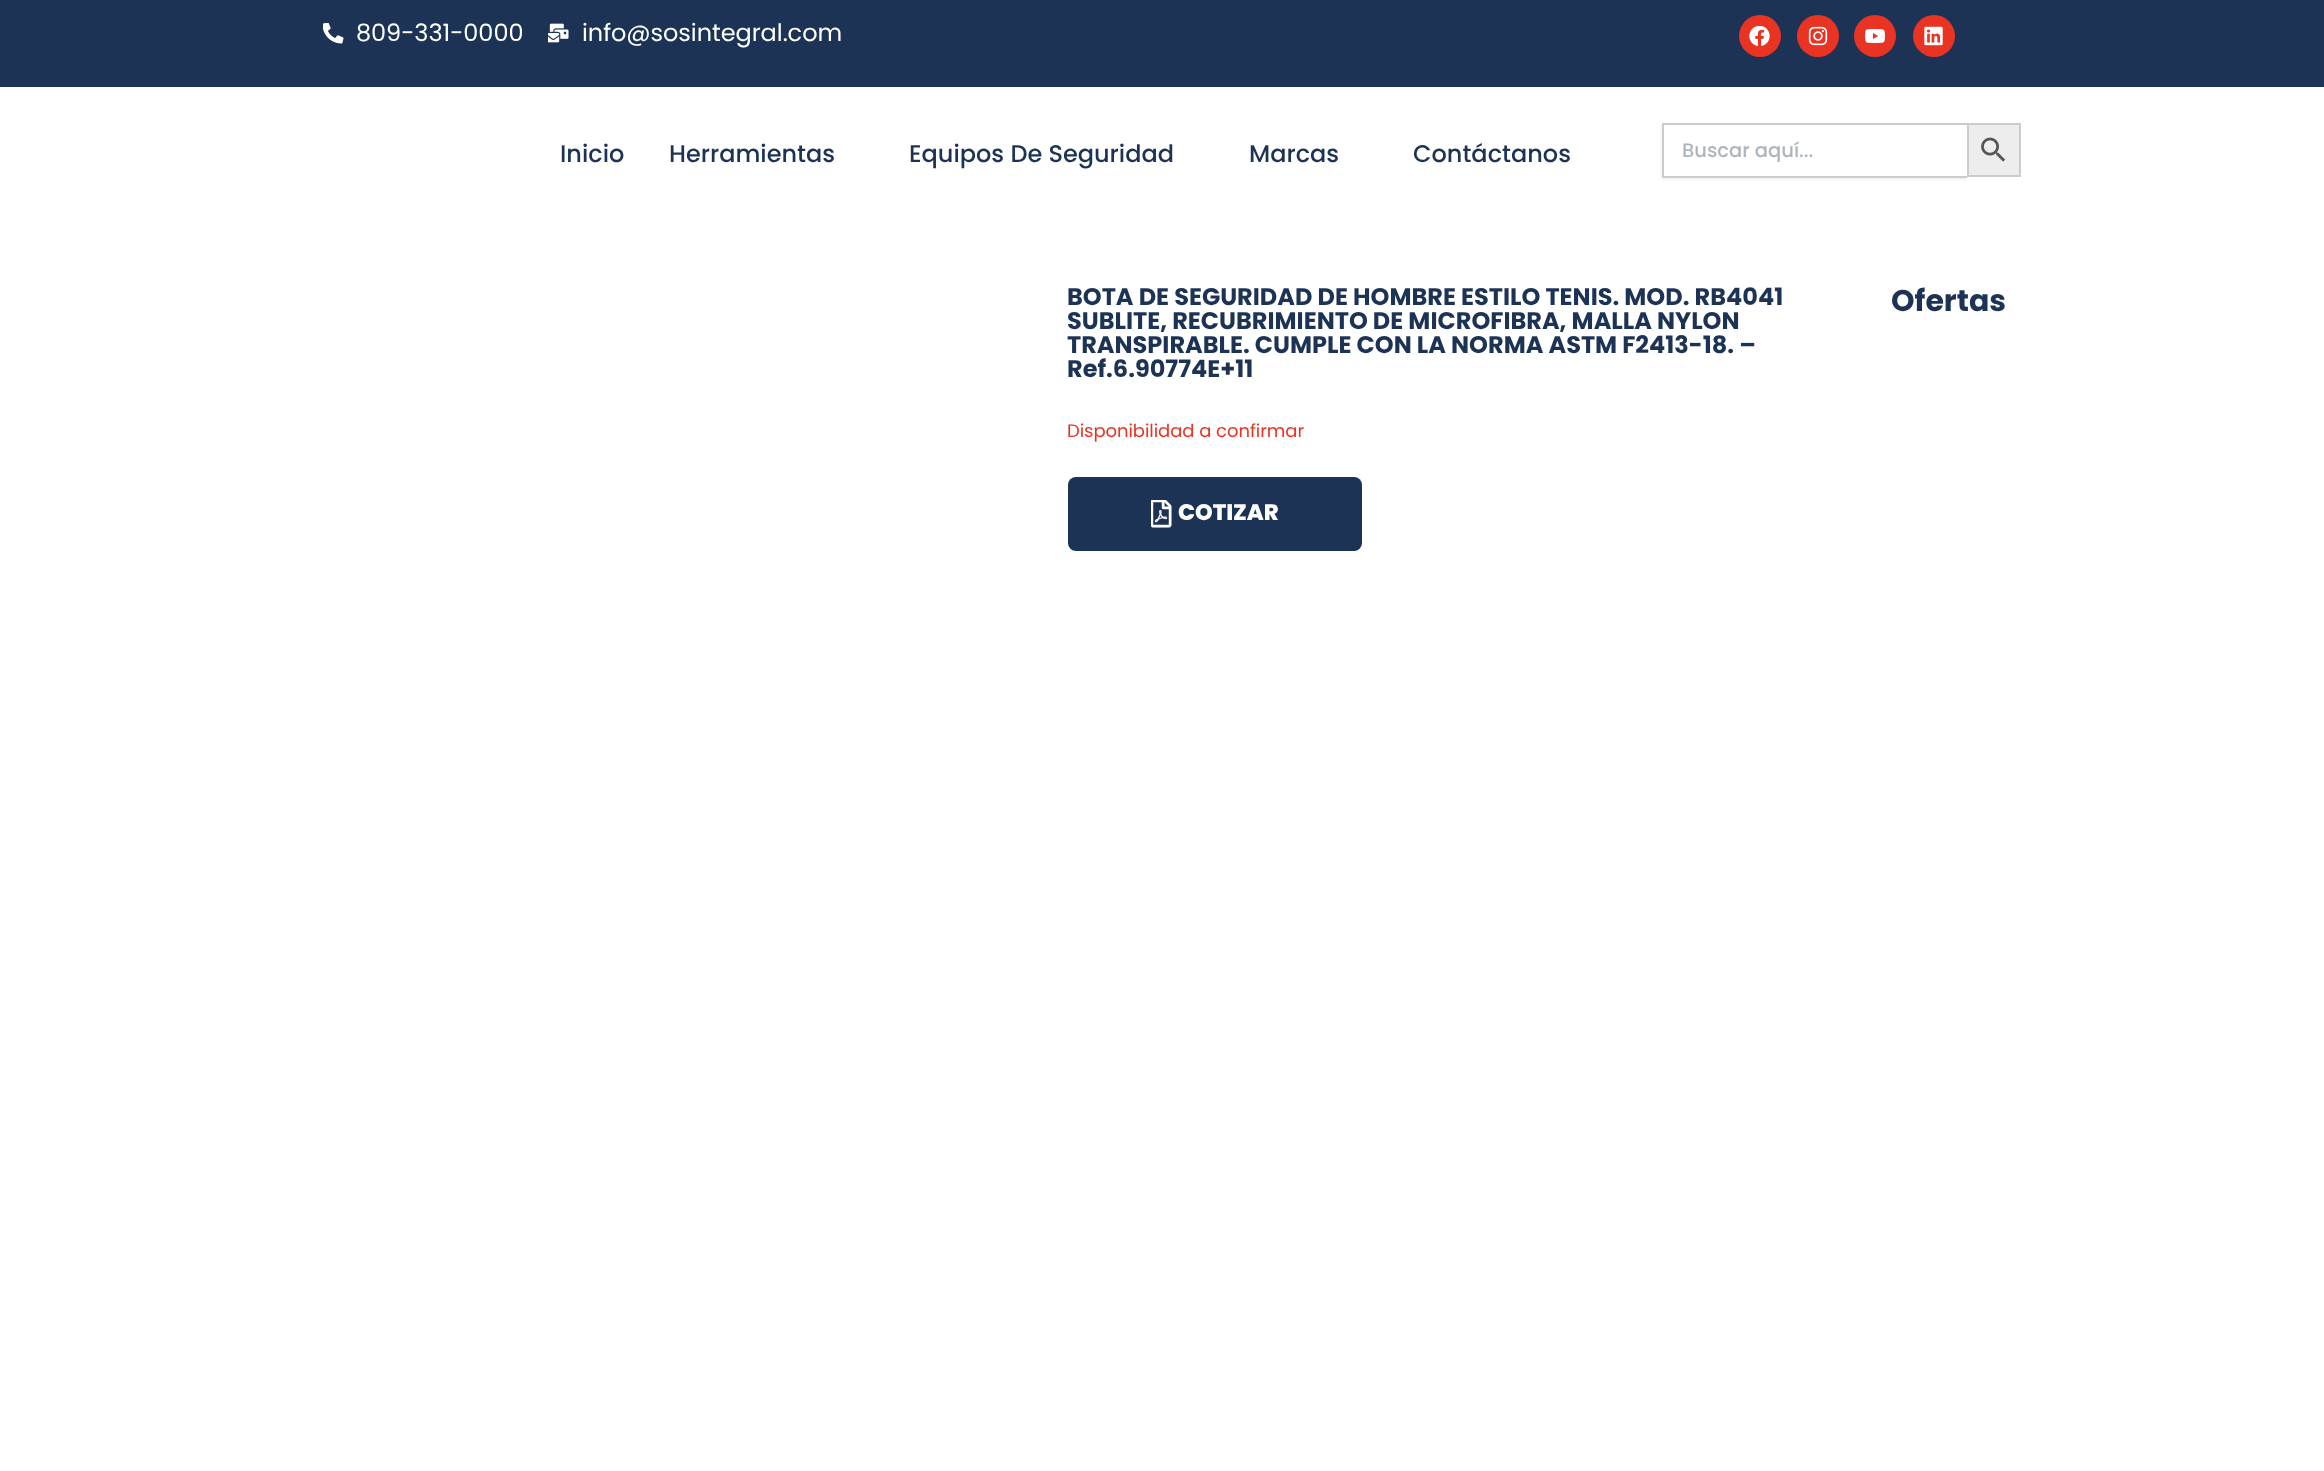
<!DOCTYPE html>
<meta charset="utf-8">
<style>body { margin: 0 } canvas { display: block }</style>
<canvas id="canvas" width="2324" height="1471"></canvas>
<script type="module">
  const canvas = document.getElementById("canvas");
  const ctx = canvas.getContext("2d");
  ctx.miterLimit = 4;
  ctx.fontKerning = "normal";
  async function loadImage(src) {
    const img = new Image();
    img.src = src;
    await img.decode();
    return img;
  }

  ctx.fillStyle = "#ffffff";
  ctx.fillRect(0, 0, 2324, 1471);
  ctx.fillStyle = "#1c3356";
  ctx.fillRect(0, 0, 2324, 87);
  ctx.drawImage(await loadImage("img1.png"), 323, 23, 21, 21);
  ctx.letterSpacing = "-0.05px";
  ctx.font = "24px Poppins";
  ctx.fillStyle = "#ffffff";
  ctx.fillText("809-331-0000", 356, 41);
  ctx.drawImage(await loadImage("img2.png"), 548, 23, 21, 20);
  ctx.fillText("info@sosintegral.com", 582, 41);
  ctx.fillStyle = "#ea3423";
  ctx.beginPath();
  ctx.arc(1760, 36, 21, 0, Math.PI * 2);
  ctx.fill();
  ctx.drawImage(await loadImage("img3.png"), 1749, 26, 21, 20);
  ctx.beginPath();
  ctx.arc(1818, 36, 21, 0, Math.PI * 2);
  ctx.fill();
  ctx.drawImage(await loadImage("img4.png"), 1808, 26, 20, 20);
  ctx.beginPath();
  ctx.arc(1875, 36, 21, 0, Math.PI * 2);
  ctx.fill();
  ctx.drawImage(await loadImage("img5.png"), 1865, 29, 20, 14);
  ctx.beginPath();
  ctx.arc(1934, 36, 21, 0, Math.PI * 2);
  ctx.fill();
  ctx.drawImage(await loadImage("img6.png"), 1924, 26, 19, 20);
  ctx.letterSpacing = "0px";
  ctx.font = "500 24px Poppins";
  ctx.fillStyle = "#1c3356";
  ctx.fillText("Inicio", 560, 162);
  ctx.fillText("Herramientas", 669, 162);
  ctx.fillText("Equipos De Seguridad", 909, 162);
  ctx.fillText("Marcas", 1249, 162);
  ctx.fillText("Contáctanos", 1413, 162);
  ctx.fillStyle = "rgba(33, 37, 41, 0.09)";
  ctx.filter = "blur(1.5px)";
  ctx.beginPath();
  ctx.rect(1662, 125, 305, 54);
  ctx.fill();
  ctx.filter = "none";
  ctx.fillStyle = "#ffffff";
  ctx.fillRect(1664, 125, 303, 51);
  ctx.fillStyle = "#cccccc";
  ctx.fillRect(1662, 123, 305, 2);
  ctx.fillRect(1662, 176, 305, 2);
  ctx.fillRect(1662, 123, 2, 54);
  ctx.font = "500 19.5px Poppins";
  ctx.fillStyle = "#adb5bd";
  ctx.fillText("Buscar aquí...", 1682, 157);
  ctx.fillStyle = "#ededed";
  ctx.beginPath();
  ctx.rect(1968, 124, 52, 52);
  ctx.fill();
  ctx.strokeStyle = "#cccccc";
  ctx.lineWidth = 2;
  ctx.stroke();
  ctx.drawImage(await loadImage("img7.png"), 1981, 137, 25, 25);
  ctx.font = "bold 24px Poppins";
  ctx.fillStyle = "#1c3356";
  ctx.fillText("BOTA DE SEGURIDAD DE HOMBRE ESTILO TENIS. MOD. RB4041", 1067, 305);
  ctx.fillText("SUBLITE, RECUBRIMIENTO DE MICROFIBRA, MALLA NYLON", 1067, 329);
  ctx.fillText("TRANSPIRABLE. CUMPLE CON LA NORMA ASTM F2413-18. –", 1067, 353);
  ctx.fillText("Ref.6.90774E+11", 1067, 377);
  ctx.letterSpacing = "-0.05px";
  ctx.font = "18px Poppins";
  ctx.fillStyle = "#eb3324";
  ctx.fillText("Disponibilidad a confirmar", 1067, 437);
  ctx.fillStyle = "#1c3356";
  ctx.beginPath();
  ctx.roundRect(1068, 477, 294, 74, 8);
  ctx.fill();
  ctx.drawImage(await loadImage("img8.png"), 1151, 500, 21, 28);
  ctx.font = "800 22.5px Poppins";
  ctx.fillStyle = "#ffffff";
  ctx.fillText("COTIZAR", 1178, 520);
  ctx.letterSpacing = "0px";
  ctx.font = "bold 30px Poppins";
  ctx.fillStyle = "#1c3356";
  ctx.fillText("Ofertas", 1891, 311);
</script>
